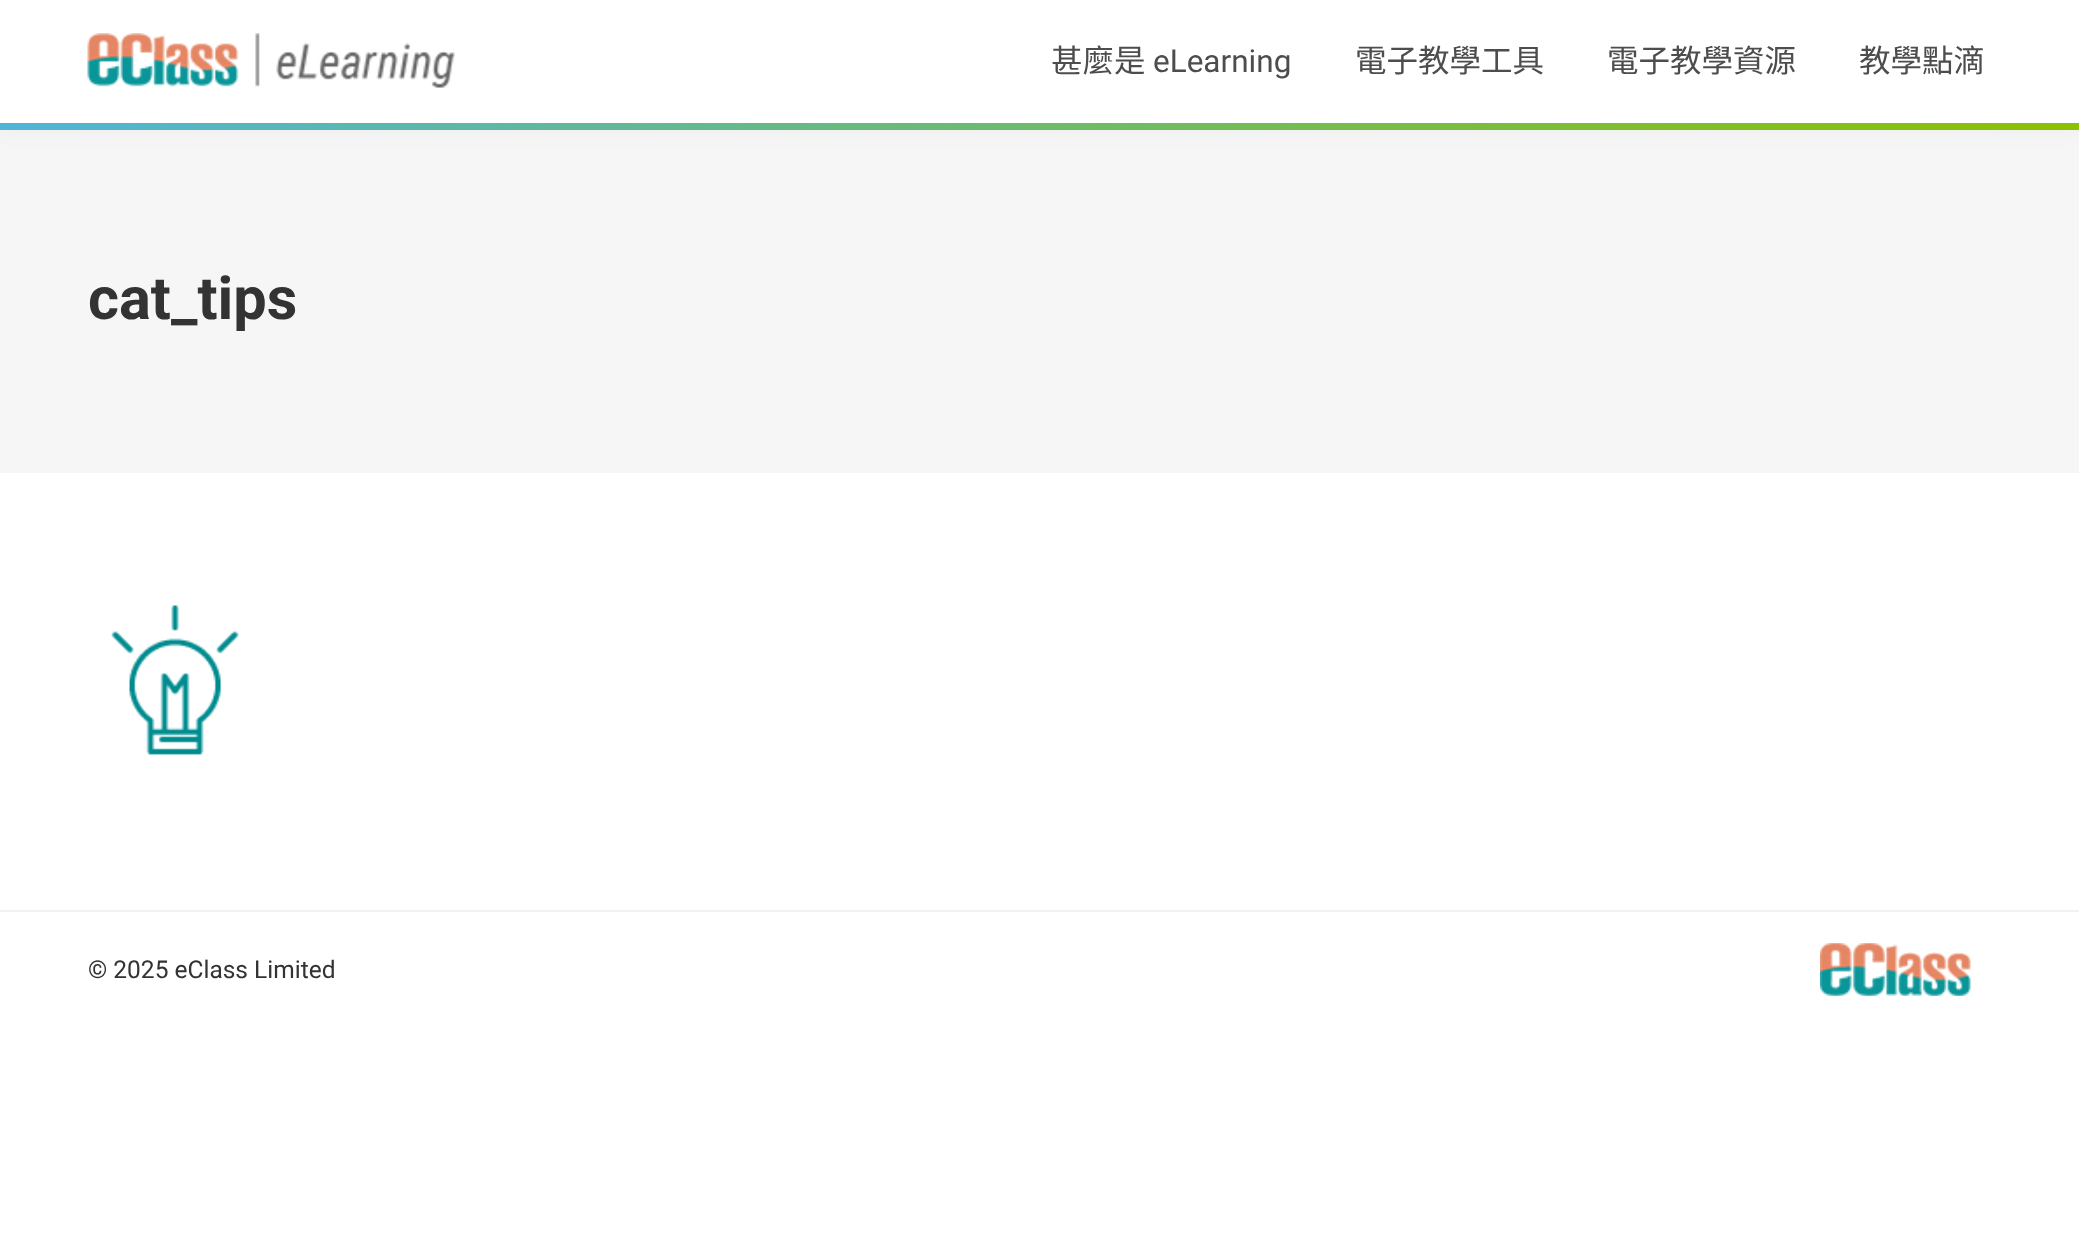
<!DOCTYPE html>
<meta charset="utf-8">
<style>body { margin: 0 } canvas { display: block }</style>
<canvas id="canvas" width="2079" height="1237"></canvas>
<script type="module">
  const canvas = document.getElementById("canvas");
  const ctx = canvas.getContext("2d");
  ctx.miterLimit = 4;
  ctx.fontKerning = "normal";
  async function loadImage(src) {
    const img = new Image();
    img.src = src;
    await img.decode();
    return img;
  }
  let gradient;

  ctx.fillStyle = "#ffffff";
  ctx.fillRect(0, 0, 2079, 1237);
  ctx.fillStyle = "#f6f6f6";
  ctx.fillRect(0, 130, 2079, 343);
  ctx.fillStyle = "rgba(0, 0, 0, 0.07)";
  ctx.filter = "blur(13px)";
  ctx.beginPath();
  ctx.rect(-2, -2, 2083, 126);
  ctx.fill();
  ctx.filter = "none";
  ctx.fillStyle = "#ffffff";
  ctx.fillRect(0, 0, 2079, 123);
  ctx.drawImage(await loadImage("img1.png"), 87, 33, 368, 55);
  ctx.font = "31.5px Noto Sans CJK TC";
  ctx.fillStyle = "#4d4d4d";
  ctx.fillText("甚麼是", 1051, 72);
  ctx.font = "31.5px Roboto";
  ctx.fillText("eLearning", 1153, 72);
  ctx.font = "31.5px Noto Sans CJK TC";
  ctx.fillText("電子教學工具", 1355, 72);
  ctx.fillText("電子教學資源", 1607, 72);
  ctx.fillText("教學點滴", 1859, 72);
  gradient = ctx.createLinearGradient(0, 126, 2079, 126);
  gradient.addColorStop(0, "#4fb5d7");
  gradient.addColorStop(1, "#8cc100");
  ctx.fillStyle = gradient;
  ctx.fillRect(0, 123, 2079, 7);
  ctx.font = "bold 59.5px Roboto";
  ctx.fillStyle = "#333333";
  ctx.fillText("cat_tips", 88, 319);
  ctx.drawImage(await loadImage("img2.png"), 111, 605, 128, 150);
  ctx.fillStyle = "#f2f2f2";
  ctx.fillRect(0, 910, 2079, 2);
  ctx.font = "24.5px Roboto";
  ctx.fillStyle = "#333333";
  ctx.fillText("© 2025 eClass Limited", 88, 978);
  ctx.drawImage(await loadImage("img3.png"), 1820, 943, 151, 53);
</script>
